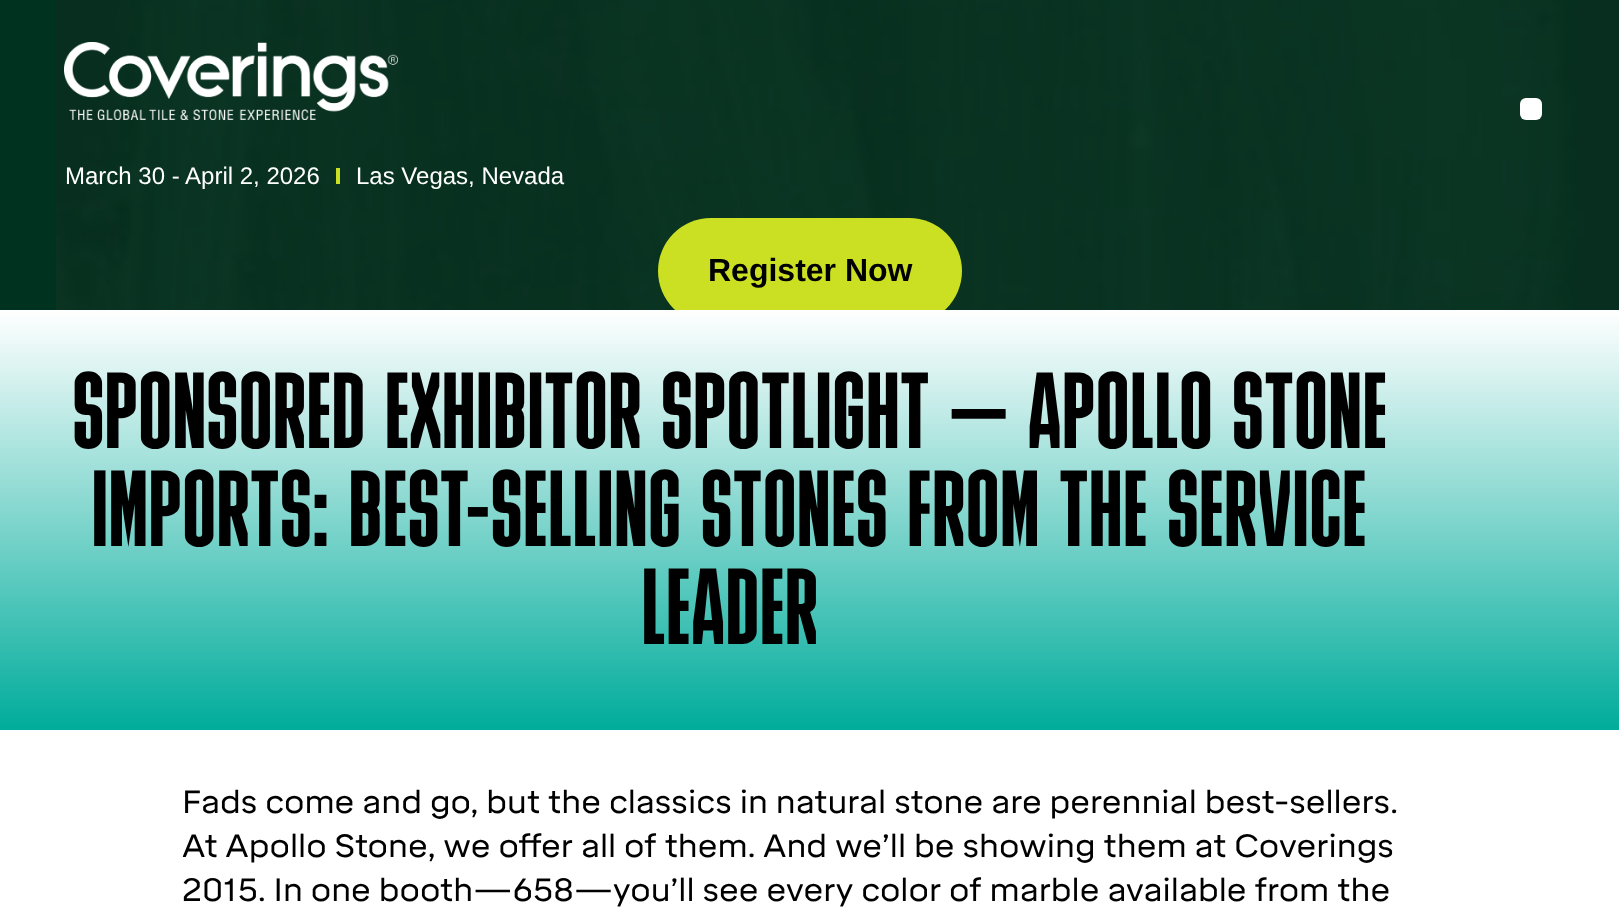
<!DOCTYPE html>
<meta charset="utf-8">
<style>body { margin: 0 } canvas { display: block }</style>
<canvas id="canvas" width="1619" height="911"></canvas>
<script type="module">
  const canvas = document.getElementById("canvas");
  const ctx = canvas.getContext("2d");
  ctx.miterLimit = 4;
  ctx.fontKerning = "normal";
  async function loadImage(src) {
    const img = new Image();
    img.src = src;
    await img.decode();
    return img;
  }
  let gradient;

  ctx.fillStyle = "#ffffff";
  ctx.fillRect(0, 0, 1619, 911);
  ctx.fillStyle = "#003220";
  ctx.fillRect(0, 0, 1619, 310);
  ctx.drawImage(await loadImage("img1.png"), 56, 0, 1563, 310);
  ctx.fillStyle = "#ffffff";
  ctx.beginPath();
  ctx.roundRect(1520, 98, 22, 22, 6);
  ctx.fill();
  ctx.drawImage(await loadImage("img2.png"), 64, 42, 334, 78);
  ctx.font = "24px Liberation Sans";
  ctx.fillText("March 30 - April 2, 2026", 65, 184);
  ctx.fillStyle = "#cbe023";
  ctx.fillRect(336, 168, 4, 16);
  ctx.fillStyle = "#ffffff";
  ctx.fillText("Las Vegas, Nevada", 356, 184);
  ctx.fillStyle = "#cbe023";
  ctx.beginPath();
  ctx.roundRect(658, 218, 304, 106, 53);
  ctx.fill();
  ctx.font = "bold 32px Liberation Sans";
  ctx.fillStyle = "#000000";
  ctx.fillText("Register Now", 708, 281);
  gradient = ctx.createLinearGradient(810, 310, 810, 730);
  gradient.addColorStop(0, "#ffffff");
  gradient.addColorStop(1, "#00ac9b");
  ctx.fillStyle = gradient;
  ctx.fillRect(0, 310, 1619, 420);
  ctx.letterSpacing = "1.4px";
  ctx.font = "108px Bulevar";
  ctx.fillStyle = "#000000";
  ctx.fillText("SPONSORED EXHIBITOR SPOTLIGHT – APOLLO STONE", 73, 448);
  ctx.fillText("IMPORTS: BEST-SELLING STONES FROM THE SERVICE", 92, 546);
  ctx.fillText("LEADER", 642, 644);
  ctx.letterSpacing = "0px";
  ctx.font = "32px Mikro";
  ctx.fillText("Fads come and go, but the classics in natural stone are perennial best-sellers.", 182, 813);
  ctx.fillText("At Apollo Stone, we offer all of them. And we’ll be showing them at Coverings", 182, 857);
  ctx.fillText("2015. In one booth—658—you’ll see every color of marble available from the", 182, 901);
</script>
